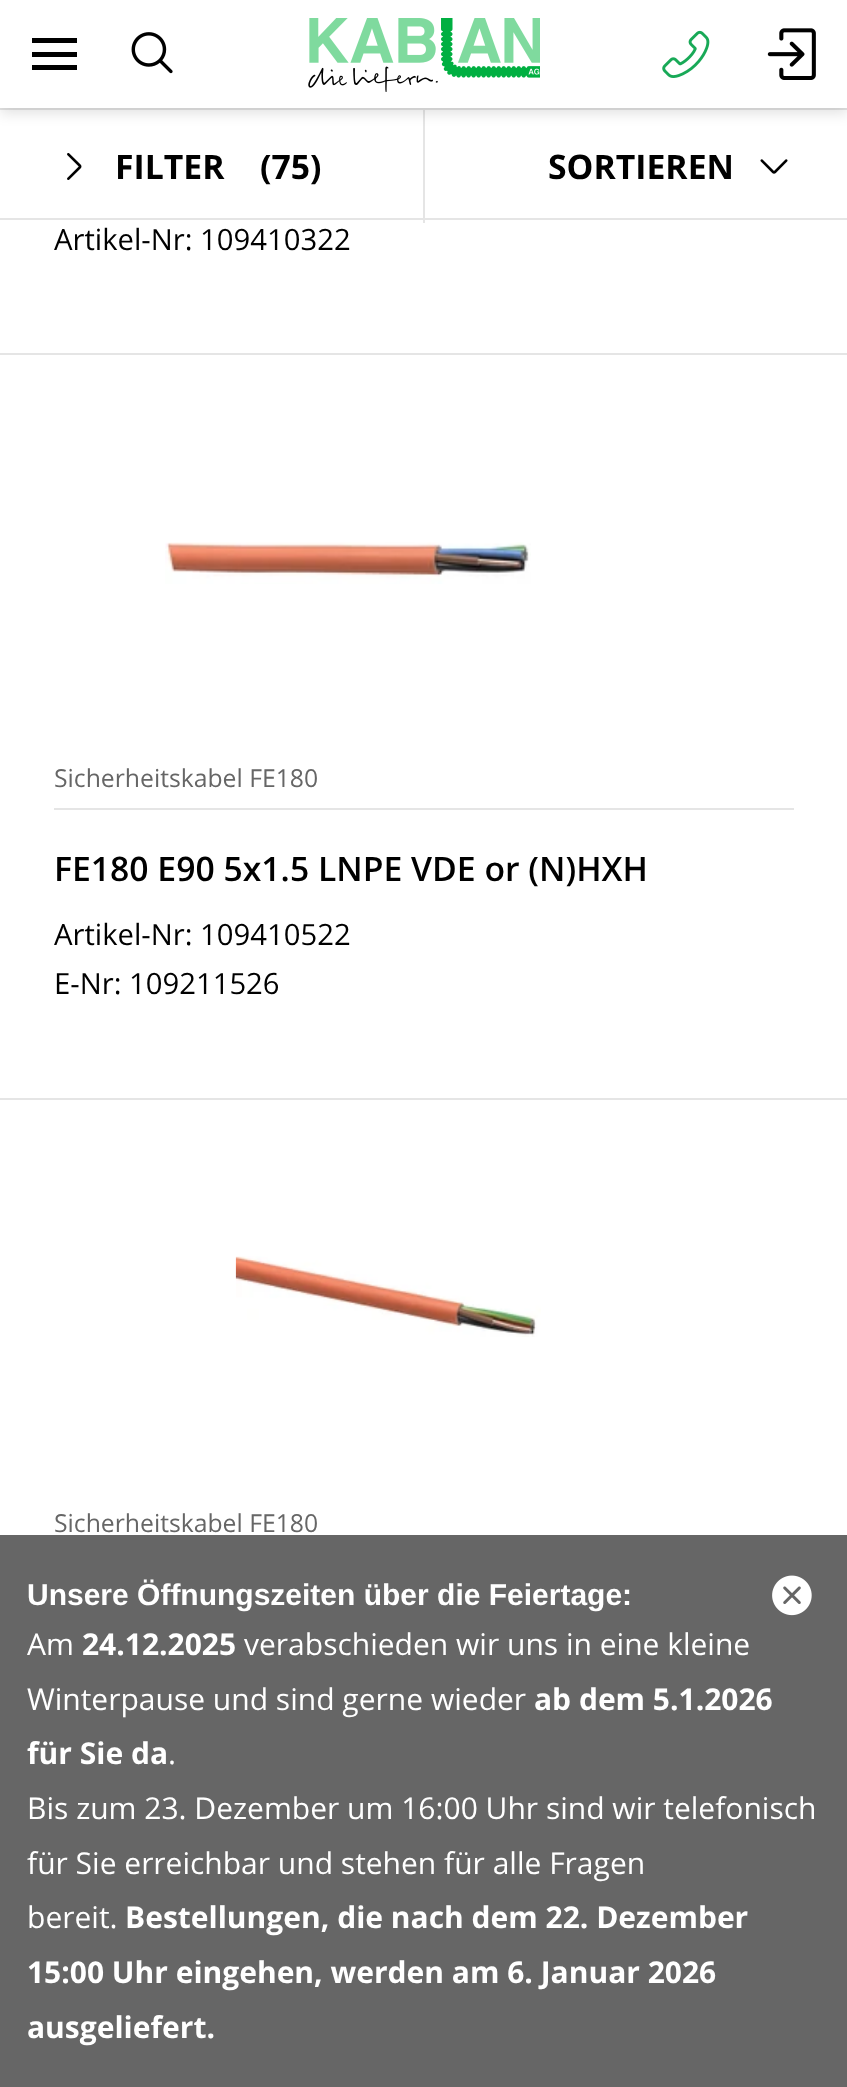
<!DOCTYPE html>
<meta charset="utf-8">
<style>body { margin: 0 } canvas { display: block }</style>
<canvas id="canvas" width="847" height="2087"></canvas>
<script type="module">
  const canvas = document.getElementById("canvas");
  const ctx = canvas.getContext("2d");
  ctx.miterLimit = 4;
  ctx.fontKerning = "normal";
  async function loadImage(src) {
    const img = new Image();
    img.src = src;
    await img.decode();
    return img;
  }

  ctx.fillStyle = "#ffffff";
  ctx.fillRect(0, 0, 847, 2087);
  ctx.fillStyle = "#e5e5e5";
  ctx.fillRect(0, 108, 847, 2);
  ctx.fillRect(0, 218, 847, 2);
  ctx.fillRect(423, 110, 2, 113);
  ctx.fillStyle = "rgba(1, 1, 1, 0.12)";
  ctx.filter = "blur(7px)";
  ctx.beginPath();
  ctx.rect(0, 5, 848, 108);
  ctx.fill();
  ctx.filter = "none";
  ctx.fillStyle = "#ffffff";
  ctx.fillRect(0, 0, 847, 108);
  ctx.fillStyle = "#000000";
  ctx.fillRect(32, 38, 45, 5);
  ctx.fillRect(32, 52, 45, 5);
  ctx.fillRect(32, 65, 45, 5);
  ctx.drawImage(await loadImage("img1.png"), 131, 32, 42, 42);
  ctx.drawImage(await loadImage("img2.png"), 308, 18, 232, 74);
  ctx.drawImage(await loadImage("img3.png"), 662, 30, 48, 48);
  ctx.drawImage(await loadImage("img4.png"), 767, 28, 49, 52);
  ctx.drawImage(await loadImage("img5.png"), 67, 153, 15, 27);
  ctx.font = "bold 33.75px Open Sans";
  ctx.fillText("FILTER", 115, 179);
  ctx.fillText("(75)", 260, 179);
  ctx.fillText("SORTIEREN", 548, 179);
  ctx.drawImage(await loadImage("img6.png"), 760, 159, 28, 15);
  ctx.fillStyle = "#e5e5e5";
  ctx.fillRect(0, 353, 847, 2);
  ctx.font = "29.25px Open Sans";
  ctx.fillStyle = "#000000";
  ctx.fillText("Artikel-Nr: 109410322", 54, 250);
  ctx.fillStyle = "#e5e5e5";
  ctx.fillRect(0, 1098, 847, 2);
  ctx.drawImage(await loadImage("img7.png"), 165, 542, 366, 42);
  ctx.font = "24.75px Open Sans";
  ctx.fillStyle = "#666666";
  ctx.fillText("Sicherheitskabel FE180", 54, 787);
  ctx.fillStyle = "#e5e5e5";
  ctx.fillRect(54, 808, 740, 2);
  ctx.font = "600 33.75px Open Sans";
  ctx.fillStyle = "#000000";
  ctx.fillText("FE180 E90 5x1.5 LNPE VDE or (N)HXH", 54, 881);
  ctx.font = "29.25px Open Sans";
  ctx.fillText("Artikel-Nr: 109410522", 54, 945);
  ctx.fillText("E-Nr: 109211526", 54, 994);
  ctx.drawImage(await loadImage("img8.png"), 235, 1256, 306, 81);
  ctx.font = "24.75px Open Sans";
  ctx.fillStyle = "#666666";
  ctx.fillText("Sicherheitskabel FE180", 54, 1532);
  ctx.fillRect(0, 1535, 847, 552);
  ctx.drawImage(await loadImage("img9.png"), 772, 1575, 40, 41);
  ctx.font = "bold 30px Liberation Sans";
  ctx.fillStyle = "#ffffff";
  ctx.fillText("Unsere Öffnungszeiten über die Feiertage:", 27, 1605);
  ctx.font = "30px Open Sans";
  ctx.fillText("Am", 27, 1655);
  ctx.font = "bold 30px Open Sans";
  ctx.fillText("24.12.2025", 82, 1655);
  ctx.font = "30px Open Sans";
  ctx.fillText("verabschieden wir uns in eine kleine", 244, 1655);
  ctx.fillText("Winterpause und sind gerne wieder", 27, 1710);
  ctx.font = "bold 30px Open Sans";
  ctx.fillText("ab dem 5.1.2026", 534, 1710);
  ctx.fillText("für Sie da", 27, 1764);
  ctx.font = "30px Open Sans";
  ctx.fillText(".", 168, 1764);
  ctx.fillText("Bis zum 23. Dezember um 16:00 Uhr sind wir telefonisch", 27, 1819);
  ctx.fillText("für Sie erreichbar und stehen für alle Fragen", 27, 1874);
  ctx.fillText("bereit.", 27, 1928);
  ctx.font = "bold 30px Open Sans";
  ctx.fillText("Bestellungen, die nach dem 22. Dezember", 125, 1928);
  ctx.fillText("15:00 Uhr eingehen, werden am 6. Januar 2026", 27, 1983);
  ctx.fillText("ausgeliefert.", 27, 2038);
</script>
